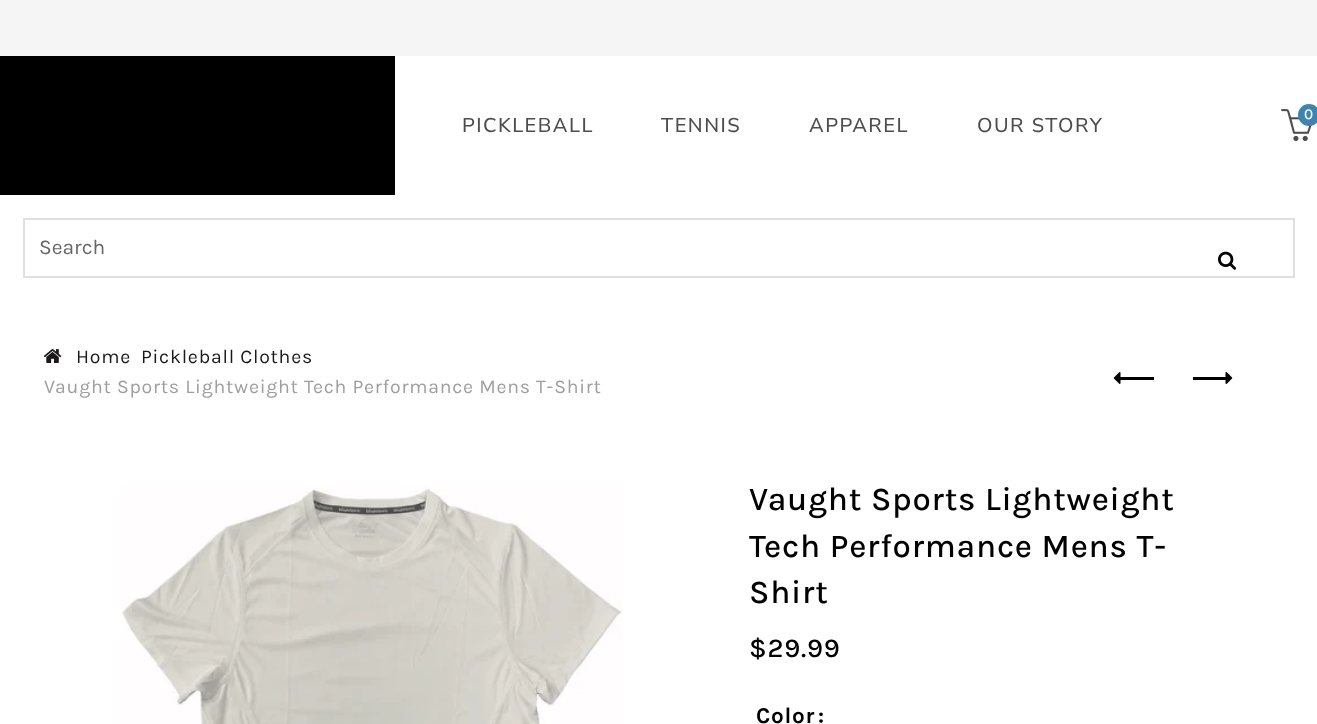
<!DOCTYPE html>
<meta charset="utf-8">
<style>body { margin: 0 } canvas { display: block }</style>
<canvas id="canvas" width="1317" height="724"></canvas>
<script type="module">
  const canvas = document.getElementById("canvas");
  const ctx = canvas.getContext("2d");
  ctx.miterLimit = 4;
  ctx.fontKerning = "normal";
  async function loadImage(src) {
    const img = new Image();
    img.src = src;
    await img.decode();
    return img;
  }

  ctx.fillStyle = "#ffffff";
  ctx.fillRect(0, 0, 1317, 724);
  ctx.fillStyle = "#f5f5f5";
  ctx.fillRect(0, 0, 1317, 56);
  ctx.fillStyle = "#000000";
  ctx.fillRect(0, 56, 395, 139);
  ctx.drawImage(await loadImage("img1.png"), 1281, 109, 31, 32);
  ctx.fillStyle = "#3e84b0";
  ctx.beginPath();
  ctx.arc(1309, 115, 11, 0, Math.PI * 2);
  ctx.fill();
  ctx.letterSpacing = "0.75px";
  ctx.font = "500 15px Karla";
  ctx.fillStyle = "#ffffff";
  ctx.fillText("0", 1304, 119);
  ctx.letterSpacing = "1.5px";
  ctx.font = "500 20px Nunito Sans";
  ctx.fillStyle = "#4d4d4d";
  ctx.fillText("PICKLEBALL", 462, 132);
  ctx.fillText("TENNIS", 661, 132);
  ctx.fillText("APPAREL", 809, 132);
  ctx.fillText("OUR STORY", 977, 132);
  ctx.strokeStyle = "#e0e0e0";
  ctx.lineWidth = 2;
  ctx.strokeRect(24, 219, 1270, 58);
  ctx.letterSpacing = "0px";
  ctx.font = "21px Karla";
  ctx.fillStyle = "#666666";
  ctx.fillText("Search", 39, 254);
  ctx.drawImage(await loadImage("img2.png"), 1218, 251, 19, 19);
  ctx.drawImage(await loadImage("img3.png"), 43, 349, 19, 14);
  ctx.letterSpacing = "0.75px";
  ctx.font = "19.5px Karla";
  ctx.fillStyle = "#1b1919";
  ctx.fillText("Home", 76, 363);
  ctx.fillText("Pickleball Clothes", 141, 363);
  ctx.fillStyle = "#9e9e9e";
  ctx.fillText("Vaught Sports Lightweight Tech Performance Mens T-Shirt", 44, 393);
  ctx.fillStyle = "#000000";
  ctx.fillRect(1119, 377, 35, 3);
  ctx.drawImage(await loadImage("img4.png"), 1113, 372, 8, 12);
  ctx.fillRect(1193, 377, 34, 3);
  ctx.drawImage(await loadImage("img5.png"), 1225, 372, 8, 12);
  ctx.drawImage(await loadImage("img6.png"), 121, 486, 502, 238);
  ctx.font = "500 33px Karla";
  ctx.fillText("Vaught Sports Lightweight", 749, 510);
  ctx.fillText("Tech Performance Mens T-", 749, 557);
  ctx.fillText("Shirt", 749, 603);
  ctx.font = "500 27px Karla";
  ctx.fillText("$29.99", 749, 657);
  ctx.font = "bold 22.5px Karla";
  ctx.fillText("Color", 756, 723);
  ctx.fillText(":", 818, 723);
</script>
